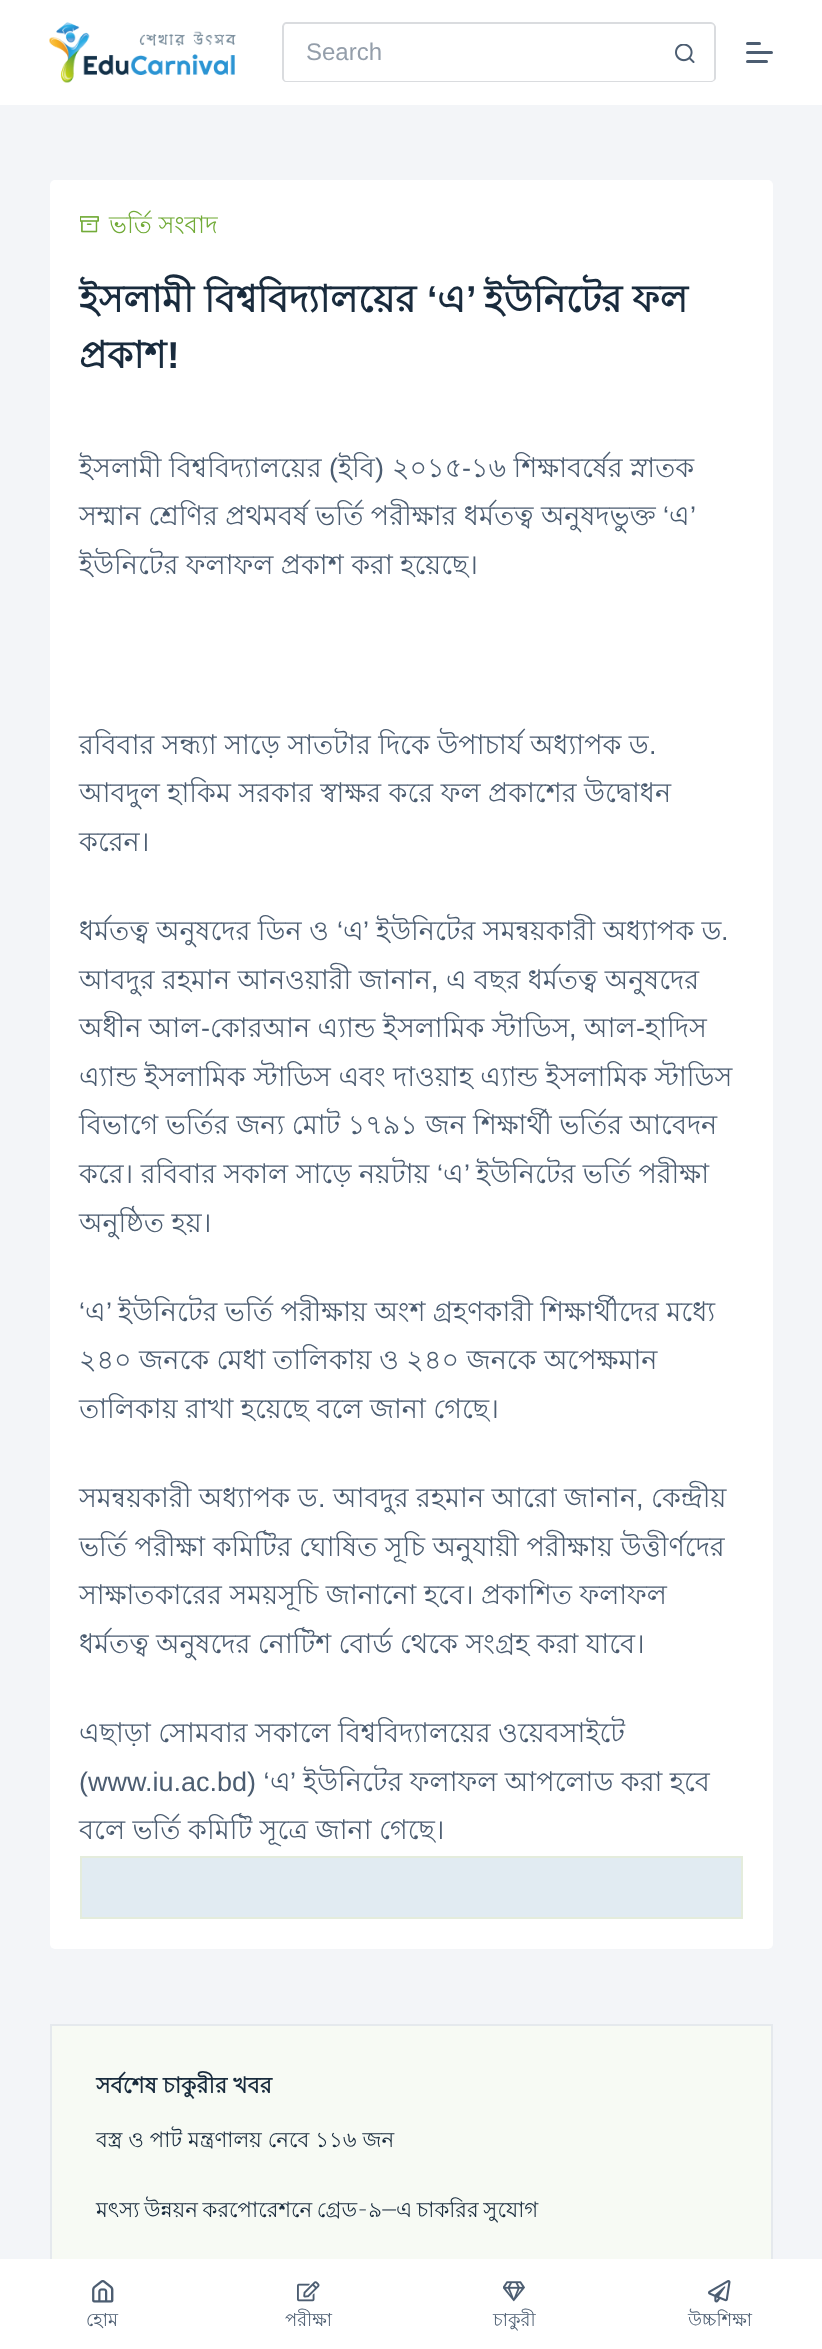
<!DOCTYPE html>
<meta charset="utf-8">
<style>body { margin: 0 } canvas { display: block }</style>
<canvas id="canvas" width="822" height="2349"></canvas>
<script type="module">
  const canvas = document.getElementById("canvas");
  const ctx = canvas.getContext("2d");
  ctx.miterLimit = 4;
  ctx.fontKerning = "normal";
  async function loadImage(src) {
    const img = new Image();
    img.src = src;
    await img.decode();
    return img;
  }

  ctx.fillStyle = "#f3f5f8";
  ctx.fillRect(0, 0, 822, 2349);
  ctx.fillStyle = "#ffffff";
  ctx.fillRect(0, 0, 822, 105);
  ctx.drawImage(await loadImage("img1.png"), 49, 22, 187, 61);
  ctx.fillStyle = "#dadcdf";
  ctx.beginPath();
  ctx.moveTo(286, 22);
  ctx.lineTo(656, 22);
  ctx.lineTo(656, 82);
  ctx.lineTo(286, 82);
  ctx.bezierCurveTo(284, 82, 282, 80, 282, 78);
  ctx.lineTo(282, 27);
  ctx.bezierCurveTo(282, 25, 284, 22, 286, 22);
  ctx.closePath();
  ctx.moveTo(286, 24);
  ctx.lineTo(656, 24);
  ctx.lineTo(656, 81);
  ctx.lineTo(286, 81);
  ctx.bezierCurveTo(285, 81, 284, 80, 284, 78);
  ctx.lineTo(284, 27);
  ctx.bezierCurveTo(284, 25, 285, 24, 286, 24);
  ctx.closePath();
  ctx.fill("evenodd");
  ctx.font = "24px Liberation Sans";
  ctx.fillStyle = "#949eaa";
  ctx.fillText("Search", 306, 60);
  ctx.fillStyle = "#dadcdf";
  ctx.beginPath();
  ctx.moveTo(656, 22);
  ctx.lineTo(711, 22);
  ctx.bezierCurveTo(713, 22, 716, 25, 716, 27);
  ctx.lineTo(716, 78);
  ctx.bezierCurveTo(716, 80, 713, 82, 711, 82);
  ctx.lineTo(656, 82);
  ctx.closePath();
  ctx.moveTo(656, 24);
  ctx.lineTo(711, 24);
  ctx.bezierCurveTo(713, 24, 714, 25, 714, 27);
  ctx.lineTo(714, 78);
  ctx.bezierCurveTo(714, 80, 713, 81, 711, 81);
  ctx.lineTo(656, 81);
  ctx.closePath();
  ctx.fill("evenodd");
  ctx.drawImage(await loadImage("img2.png"), 675, 44, 20, 19);
  ctx.fillStyle = "#4c5d71";
  ctx.beginPath();
  ctx.roundRect(746, 42, 15, 3, 1.5);
  ctx.fill();
  ctx.beginPath();
  ctx.roundRect(746, 51, 27, 3, 1.5);
  ctx.fill();
  ctx.beginPath();
  ctx.roundRect(746, 60, 22, 3, 1.5);
  ctx.fill();
  ctx.fillStyle = "#ffffff";
  ctx.beginPath();
  ctx.roundRect(50, 180, 723, 1769, 5);
  ctx.fill();
  ctx.drawImage(await loadImage("img3.png"), 80, 216, 19, 17);
  ctx.font = "24px Lohit Bengali";
  ctx.fillStyle = "#72ab38";
  ctx.fillText("ভর্তি সংবাদ", 109, 233);
  ctx.font = "bold 37.5px Lohit Bengali";
  ctx.fillStyle = "#192b3d";
  ctx.fillText("ইসলামী বিশ্ববিদ্যালয়ের", 79, 312);
  ctx.font = "bold 37.5px Liberation Sans";
  ctx.fillText("‘", 427, 312);
  ctx.font = "bold 37.5px Lohit Bengali";
  ctx.fillText("এ", 437, 312);
  ctx.font = "bold 37.5px Liberation Sans";
  ctx.fillText("’", 466, 312);
  ctx.font = "bold 37.5px Lohit Bengali";
  ctx.fillText("ইউনিটের ফল", 484, 312);
  ctx.fillText("প্রকাশ", 79, 368);
  ctx.font = "bold 37.5px Liberation Sans";
  ctx.fillText("!", 167, 368);
  ctx.font = "27px Lohit Bengali";
  ctx.fillStyle = "#4c5d71";
  ctx.fillText("ইসলামী বিশ্ববিদ্যালয়ের", 79, 477);
  ctx.font = "27px Liberation Sans";
  ctx.fillText("(", 329, 477);
  ctx.font = "27px Lohit Bengali";
  ctx.fillText("ইবি", 338, 477);
  ctx.font = "27px Liberation Sans";
  ctx.fillText(")", 375, 477);
  ctx.font = "27px Lohit Bengali";
  ctx.fillText("২০১৫", 392, 477);
  ctx.font = "27px Liberation Sans";
  ctx.fillText("-", 462, 477);
  ctx.font = "27px Lohit Bengali";
  ctx.fillText("১৬ শিক্ষাবর্ষের স্নাতক", 471, 477);
  ctx.fillText("সম্মান শ্রেণির প্রথমবর্ষ ভর্তি পরীক্ষার ধর্মতত্ব অনুষদভুক্ত", 79, 525);
  ctx.font = "27px Liberation Sans";
  ctx.fillText("‘", 663, 525);
  ctx.font = "27px Lohit Bengali";
  ctx.fillText("এ", 669, 525);
  ctx.font = "27px Liberation Sans";
  ctx.fillText("’", 690, 525);
  ctx.font = "27px Lohit Bengali";
  ctx.fillText("ইউনিটের ফলাফল প্রকাশ করা হয়েছে।", 79, 574);
  ctx.fillText("রবিবার সন্ধ্যা সাড়ে সাতটার দিকে উপাচার্য অধ্যাপক ড", 79, 754);
  ctx.font = "27px Liberation Sans";
  ctx.fillText(".", 649, 754);
  ctx.font = "27px Lohit Bengali";
  ctx.fillText("আবদুল হাকিম সরকার স্বাক্ষর করে ফল প্রকাশের উদ্বোধন", 79, 802);
  ctx.fillText("করেন।", 79, 851);
  ctx.fillText("ধর্মতত্ব অনুষদের ডিন ও", 79, 940);
  ctx.font = "27px Liberation Sans";
  ctx.fillText("‘", 337, 940);
  ctx.font = "27px Lohit Bengali";
  ctx.fillText("এ", 343, 940);
  ctx.font = "27px Liberation Sans";
  ctx.fillText("’", 363, 940);
  ctx.font = "27px Lohit Bengali";
  ctx.fillText("ইউনিটের সমন্বয়কারী অধ্যাপক ড", 376, 940);
  ctx.font = "27px Liberation Sans";
  ctx.fillText(".", 721, 940);
  ctx.font = "27px Lohit Bengali";
  ctx.fillText("আবদুর রহমান আনওয়ারী জানান", 79, 989);
  ctx.font = "27px Liberation Sans";
  ctx.fillText(",", 431, 989);
  ctx.font = "27px Lohit Bengali";
  ctx.fillText("এ বছর ধর্মতত্ব অনুষদের", 446, 989);
  ctx.fillText("অধীন আল", 79, 1037);
  ctx.font = "27px Liberation Sans";
  ctx.fillText("-", 201, 1037);
  ctx.font = "27px Lohit Bengali";
  ctx.fillText("কোরআন এ্যান্ড ইসলামিক স্টাডিস", 210, 1037);
  ctx.fillText("আল", 584, 1037);
  ctx.font = "27px Liberation Sans";
  ctx.fillText("-", 636, 1037);
  ctx.font = "27px Lohit Bengali";
  ctx.fillText("হাদিস", 645, 1037);
  ctx.font = "27px Liberation Sans";
  ctx.fillText(",", 569, 1037);
  ctx.font = "27px Lohit Bengali";
  ctx.fillText("এ্যান্ড ইসলামিক স্টাডিস এবং দাওয়াহ এ্যান্ড ইসলামিক স্টাডিস", 79, 1086);
  ctx.fillText("বিভাগে ভর্তির জন্য মোট ১৭৯১ জন শিক্ষার্থী ভর্তির আবেদন", 79, 1134);
  ctx.fillText("করে। রবিবার সকাল সাড়ে নয়টায়", 79, 1183);
  ctx.font = "27px Liberation Sans";
  ctx.fillText("‘", 437, 1183);
  ctx.font = "27px Lohit Bengali";
  ctx.fillText("এ", 443, 1183);
  ctx.font = "27px Liberation Sans";
  ctx.fillText("’", 464, 1183);
  ctx.font = "27px Lohit Bengali";
  ctx.fillText("ইউনিটের ভর্তি পরীক্ষা", 476, 1183);
  ctx.fillText("অনুষ্ঠিত হয়।", 79, 1232);
  ctx.font = "27px Liberation Sans";
  ctx.fillText("‘", 79, 1321);
  ctx.font = "27px Lohit Bengali";
  ctx.fillText("এ", 85, 1321);
  ctx.font = "27px Liberation Sans";
  ctx.fillText("’", 106, 1321);
  ctx.font = "27px Lohit Bengali";
  ctx.fillText("ইউনিটের ভর্তি পরীক্ষায় অংশ গ্রহণকারী শিক্ষার্থীদের মধ্যে", 118, 1321);
  ctx.fillText("২৪০ জনকে মেধা তালিকায় ও ২৪০ জনকে অপেক্ষমান", 79, 1369);
  ctx.fillText("তালিকায় রাখা হয়েছে বলে জানা গেছে।", 79, 1418);
  ctx.fillText("সমন্বয়কারী অধ্যাপক ড", 79, 1507);
  ctx.font = "27px Liberation Sans";
  ctx.fillText(".", 318, 1507);
  ctx.font = "27px Lohit Bengali";
  ctx.fillText("আবদুর রহমান আরো জানান", 333, 1507);
  ctx.font = "27px Liberation Sans";
  ctx.fillText(",", 636, 1507);
  ctx.font = "27px Lohit Bengali";
  ctx.fillText("কেন্দ্রীয়", 651, 1507);
  ctx.fillText("ভর্তি পরীক্ষা কমিটির ঘোষিত সূচি অনুযায়ী পরীক্ষায় উত্তীর্ণদের", 79, 1556);
  ctx.fillText("সাক্ষাতকারের সময়সূচি জানানো হবে। প্রকাশিত ফলাফল", 79, 1604);
  ctx.fillText("ধর্মতত্ব অনুষদের নোটিশ বোর্ড থেকে সংগ্রহ করা যাবে।", 79, 1653);
  ctx.fillText("এছাড়া সোমবার সকালে বিশ্ববিদ্যালয়ের ওয়েবসাইটে", 79, 1742);
  ctx.font = "27px Liberation Sans";
  ctx.fillText("(www.iu.ac.bd) ‘", 79, 1791);
  ctx.font = "27px Lohit Bengali";
  ctx.fillText("এ", 270, 1791);
  ctx.font = "27px Liberation Sans";
  ctx.fillText("’", 290, 1791);
  ctx.font = "27px Lohit Bengali";
  ctx.fillText("ইউনিটের ফলাফল আপলোড করা হবে", 303, 1791);
  ctx.fillText("বলে ভর্তি কমিটি সূত্রে জানা গেছে।", 79, 1839);
  ctx.fillStyle = "#e1ebf2";
  ctx.beginPath();
  ctx.rect(81, 1857, 661, 61);
  ctx.fill();
  ctx.strokeStyle = "#e4ecdc";
  ctx.lineWidth = 2;
  ctx.stroke();
  ctx.fillStyle = "#f7faf4";
  ctx.fillRect(52, 2026, 719, 233);
  ctx.strokeStyle = "#e5e9ed";
  ctx.strokeRect(51, 2025, 721, 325);
  ctx.font = "bold 22px Lohit Bengali";
  ctx.fillStyle = "#192b3d";
  ctx.fillText("সর্বশেষ চাকুরীর খবর", 96, 2093);
  ctx.font = "21.25px Lohit Bengali";
  ctx.fillText("বস্ত্র ও পাট মন্ত্রণালয় নেবে ১১৬ জন", 96, 2147);
  ctx.wordSpacing = "-1.25px";
  ctx.fillText("মৎস্য উন্নয়ন করপোরেশনে গ্রেড-৯–এ চাকরির সুযোগ", 96, 2217);
  ctx.fillStyle = "#ffffff";
  ctx.fillRect(0, 2259, 822, 90);
  ctx.drawImage(await loadImage("img4.png"), 92, 2280, 22, 23);
  ctx.wordSpacing = "0px";
  ctx.font = "18px Lohit Bengali";
  ctx.fillStyle = "#4c5d71";
  ctx.fillText("হোম", 86, 2326);
  ctx.drawImage(await loadImage("img5.png"), 297, 2281, 23, 21);
  ctx.fillText("পরীক্ষা", 285, 2326);
  ctx.drawImage(await loadImage("img6.png"), 503, 2281, 22, 21);
  ctx.fillText("চাকুরী", 493, 2326);
  ctx.drawImage(await loadImage("img7.png"), 708, 2280, 23, 23);
  ctx.fillText("উচ্চশিক্ষা", 688, 2326);
</script>
